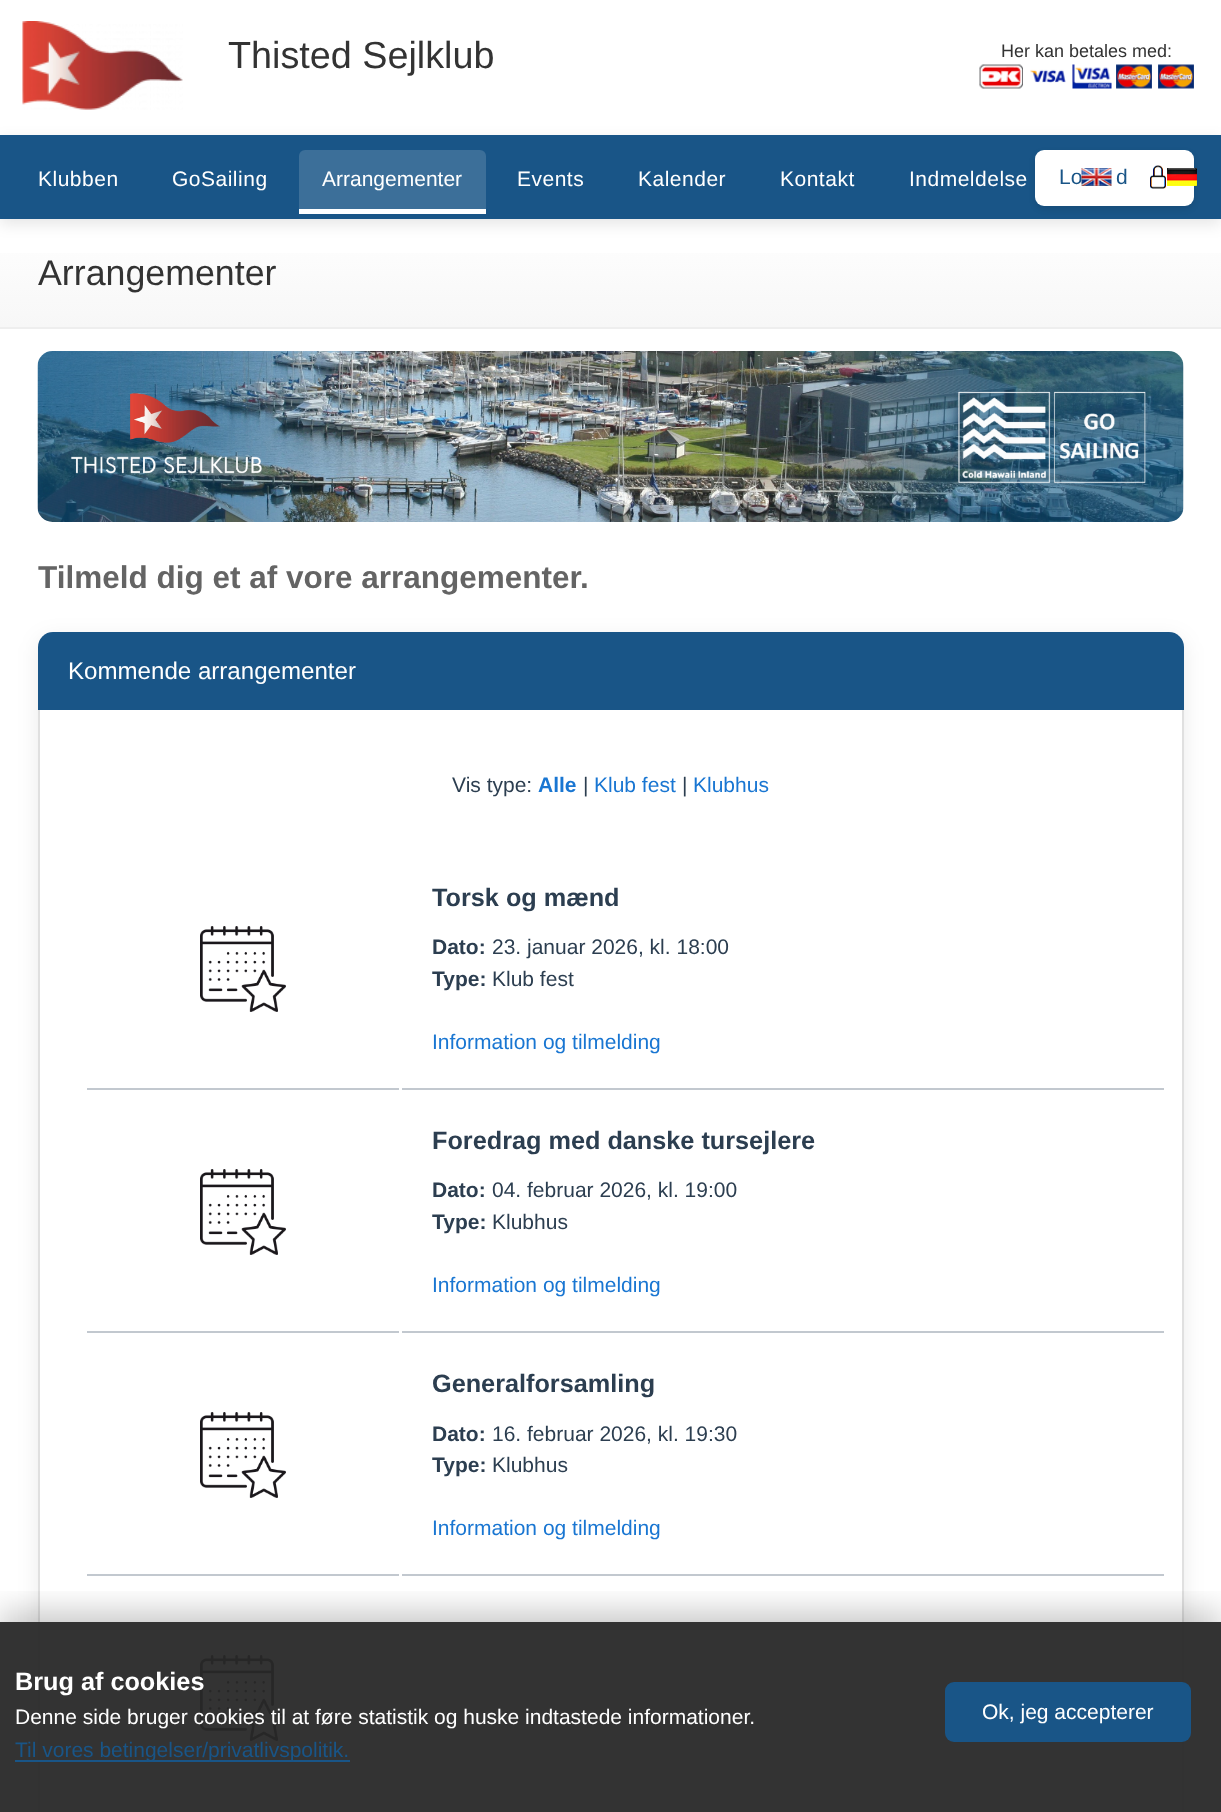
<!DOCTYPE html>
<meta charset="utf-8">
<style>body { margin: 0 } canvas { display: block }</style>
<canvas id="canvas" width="1221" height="1812"></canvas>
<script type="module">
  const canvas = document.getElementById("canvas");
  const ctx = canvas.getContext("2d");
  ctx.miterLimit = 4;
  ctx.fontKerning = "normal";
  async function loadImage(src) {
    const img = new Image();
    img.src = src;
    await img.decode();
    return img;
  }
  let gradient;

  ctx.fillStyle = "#ffffff";
  ctx.fillRect(0, 0, 1221, 1812);
  ctx.drawImage(await loadImage("img1.png"), 22, 21, 161, 89);
  ctx.font = "37.75px Liberation Sans";
  ctx.fillStyle = "#333333";
  ctx.fillText("Thisted Sejlklub", 228, 68);
  ctx.font = "18px Liberation Sans";
  ctx.fillText("Her kan betales med:", 1001, 57);
  ctx.drawImage(await loadImage("img2.png"), 979, 64, 44, 25);
  ctx.drawImage(await loadImage("img3.png"), 1030, 69, 36, 14);
  ctx.drawImage(await loadImage("img4.png"), 1072, 64, 40, 25);
  ctx.drawImage(await loadImage("img5.png"), 1116, 64, 36, 25);
  ctx.drawImage(await loadImage("img5.png"), 1158, 64, 36, 25);
  ctx.fillStyle = "rgba(0, 0, 0, 0.1)";
  ctx.filter = "blur(7.5px)";
  ctx.beginPath();
  ctx.rect(0, 140, 1221, 84);
  ctx.fill();
  ctx.filter = "none";
  ctx.fillStyle = "#195587";
  ctx.fillRect(0, 135, 1221, 84);
  ctx.letterSpacing = "0.5px";
  ctx.font = "21px Liberation Sans";
  ctx.fillStyle = "#ffffff";
  ctx.fillText("Klubben", 38, 186);
  ctx.fillText("GoSailing", 172, 186);
  ctx.fillStyle = "#3c6f99";
  ctx.beginPath();
  ctx.roundRect(299, 150, 187, 63, [6, 6, 0, 0]);
  ctx.fill();
  ctx.fillStyle = "#ffffff";
  ctx.fillRect(299, 209, 187, 5);
  ctx.letterSpacing = "0px";
  ctx.fillText("Arrangementer", 322, 186);
  ctx.letterSpacing = "0.5px";
  ctx.fillText("Events", 517, 186);
  ctx.fillText("Kalender", 638, 186);
  ctx.fillText("Kontakt", 780, 186);
  ctx.fillStyle = "rgba(0, 0, 0, 0.1)";
  ctx.filter = "blur(3px)";
  ctx.beginPath();
  ctx.roundRect(1035, 153, 159, 56, 9);
  ctx.fill();
  ctx.filter = "none";
  ctx.fillStyle = "#ffffff";
  ctx.fillText("Indmeldelse", 909, 186);
  ctx.beginPath();
  ctx.roundRect(1035, 150, 159, 56, 9);
  ctx.fill();
  ctx.letterSpacing = "0px";
  ctx.fillStyle = "#195587";
  ctx.fillText("Lo", 1059, 184);
  ctx.drawImage(await loadImage("img6.png"), 1081, 168, 31, 18);
  ctx.drawImage(await loadImage("img7.png"), 1167, 168, 30, 18);
  ctx.fillText("d", 1116, 184);
  ctx.drawImage(await loadImage("img8.png"), 1150, 165, 16, 24);
  gradient = ctx.createLinearGradient(611, 219, 611, 327);
  gradient.addColorStop(0, "#ffffff");
  gradient.addColorStop(1, "#f7f7f7");
  ctx.fillStyle = gradient;
  ctx.fillRect(0, 253, 1221, 74);
  ctx.fillStyle = "#eeeeee";
  ctx.fillRect(0, 327, 1221, 2);
  ctx.font = "35.75px Liberation Sans";
  ctx.fillStyle = "#333333";
  ctx.fillText("Arrangementer", 38, 285);
  ctx.drawImage(await loadImage("img9.png"), 37, 351, 1147, 171);
  ctx.font = "bold 31.5px Liberation Sans";
  ctx.fillStyle = "#646464";
  ctx.fillText("Tilmeld dig et af vore arrangementer.", 38, 588);
  ctx.fillStyle = "rgba(0, 0, 0, 0.08)";
  ctx.filter = "blur(11px)";
  ctx.beginPath();
  ctx.roundRect(38, 638, 1146, 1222, 15);
  ctx.fill();
  ctx.filter = "none";
  ctx.fillStyle = "#ffffff";
  ctx.beginPath();
  ctx.roundRect(38, 632, 1146, 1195, 15);
  ctx.fill();
  ctx.fillStyle = "#195587";
  ctx.beginPath();
  ctx.roundRect(38, 632, 1146, 78, [15, 15, 0, 0]);
  ctx.fill();
  ctx.font = "24.1px Liberation Sans";
  ctx.fillStyle = "#ffffff";
  ctx.fillText("Kommende arrangementer", 68, 679);
  ctx.fillStyle = "#e0e0e0";
  ctx.fillRect(1182, 710, 2, 1102);
  ctx.fillRect(38, 710, 2, 1102);
  ctx.font = "21px Liberation Sans";
  ctx.fillStyle = "#2c3e50";
  ctx.fillText("Vis type:", 452, 792);
  ctx.font = "bold 21px Liberation Sans";
  ctx.fillStyle = "#1976d2";
  ctx.fillText("Alle", 538, 792);
  ctx.font = "21px Liberation Sans";
  ctx.fillStyle = "#2c3e50";
  ctx.fillText("|", 583, 792);
  ctx.fillStyle = "#1976d2";
  ctx.fillText("Klub fest", 594, 792);
  ctx.fillStyle = "#2c3e50";
  ctx.fillText("|", 682, 792);
  ctx.fillStyle = "#1976d2";
  ctx.fillText("Klubhus", 693, 792);
  ctx.fillStyle = "#c2c8cf";
  ctx.fillRect(87, 1088, 312, 2);
  ctx.drawImage(await loadImage("img10.png"), 200, 926, 86, 86);
  ctx.fillRect(402, 1088, 762, 2);
  ctx.font = "bold 25.25px Liberation Sans";
  ctx.fillStyle = "#2c3e50";
  ctx.fillText("Torsk og mænd", 432, 906);
  ctx.font = "bold 21px Liberation Sans";
  ctx.fillText("Dato:", 432, 954);
  ctx.font = "21px Liberation Sans";
  ctx.fillText("23. januar 2026, kl. 18:00", 492, 954);
  ctx.font = "bold 21px Liberation Sans";
  ctx.fillText("Type:", 432, 986);
  ctx.font = "21px Liberation Sans";
  ctx.fillText("Klub fest", 492, 986);
  ctx.fillStyle = "#1976d2";
  ctx.fillText("Information og tilmelding", 432, 1049);
  ctx.fillStyle = "#c2c8cf";
  ctx.fillRect(87, 1331, 312, 2);
  ctx.drawImage(await loadImage("img10.png"), 200, 1169, 86, 86);
  ctx.fillRect(402, 1331, 762, 2);
  ctx.font = "bold 25.25px Liberation Sans";
  ctx.fillStyle = "#2c3e50";
  ctx.fillText("Foredrag med danske tursejlere", 432, 1149);
  ctx.font = "bold 21px Liberation Sans";
  ctx.fillText("Dato:", 432, 1197);
  ctx.font = "21px Liberation Sans";
  ctx.fillText("04. februar 2026, kl. 19:00", 492, 1197);
  ctx.font = "bold 21px Liberation Sans";
  ctx.fillText("Type:", 432, 1229);
  ctx.font = "21px Liberation Sans";
  ctx.fillText("Klubhus", 492, 1229);
  ctx.fillStyle = "#1976d2";
  ctx.fillText("Information og tilmelding", 432, 1292);
  ctx.fillStyle = "#c2c8cf";
  ctx.fillRect(87, 1574, 312, 2);
  ctx.drawImage(await loadImage("img10.png"), 200, 1412, 86, 86);
  ctx.fillRect(402, 1574, 762, 2);
  ctx.font = "bold 25.25px Liberation Sans";
  ctx.fillStyle = "#2c3e50";
  ctx.fillText("Generalforsamling", 432, 1392);
  ctx.font = "bold 21px Liberation Sans";
  ctx.fillText("Dato:", 432, 1441);
  ctx.font = "21px Liberation Sans";
  ctx.fillText("16. februar 2026, kl. 19:30", 492, 1441);
  ctx.font = "bold 21px Liberation Sans";
  ctx.fillText("Type:", 432, 1472);
  ctx.font = "21px Liberation Sans";
  ctx.fillText("Klubhus", 492, 1472);
  ctx.fillStyle = "#1976d2";
  ctx.fillText("Information og tilmelding", 432, 1535);
  ctx.drawImage(await loadImage("img10.png"), 200, 1655, 86, 86);
  ctx.save();
  ctx.beginPath();
  ctx.rect(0, 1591, 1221, 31);
  ctx.clip();
  ctx.fillStyle = "rgba(0, 0, 0, 0.2)";
  ctx.filter = "blur(15px)";
  ctx.beginPath();
  ctx.rect(0, 1610, 1221, 190);
  ctx.fill();
  ctx.filter = "none";
  ctx.restore();
  ctx.fillStyle = "rgba(40, 40, 40, 0.95)";
  ctx.fillRect(0, 1622, 1221, 190);
  ctx.font = "bold 25.25px Liberation Sans";
  ctx.fillStyle = "#ffffff";
  ctx.fillText("Brug af cookies", 15, 1690);
  ctx.font = "21px Liberation Sans";
  ctx.fillText("Denne side bruger cookies til at føre statistik og huske indtastede informationer.", 15, 1724);
  ctx.fillStyle = "#195587";
  ctx.beginPath();
  ctx.roundRect(945, 1682, 246, 60, 9);
  ctx.fill();
  ctx.fillStyle = "#ffffff";
  ctx.fillText("Ok, jeg accepterer", 982, 1719);
  ctx.fillStyle = "#195587";
  ctx.fillRect(15, 1760, 335, 2);
  ctx.fillText("Til vores betingelser/privatlivspolitik.", 15, 1757);
</script>
